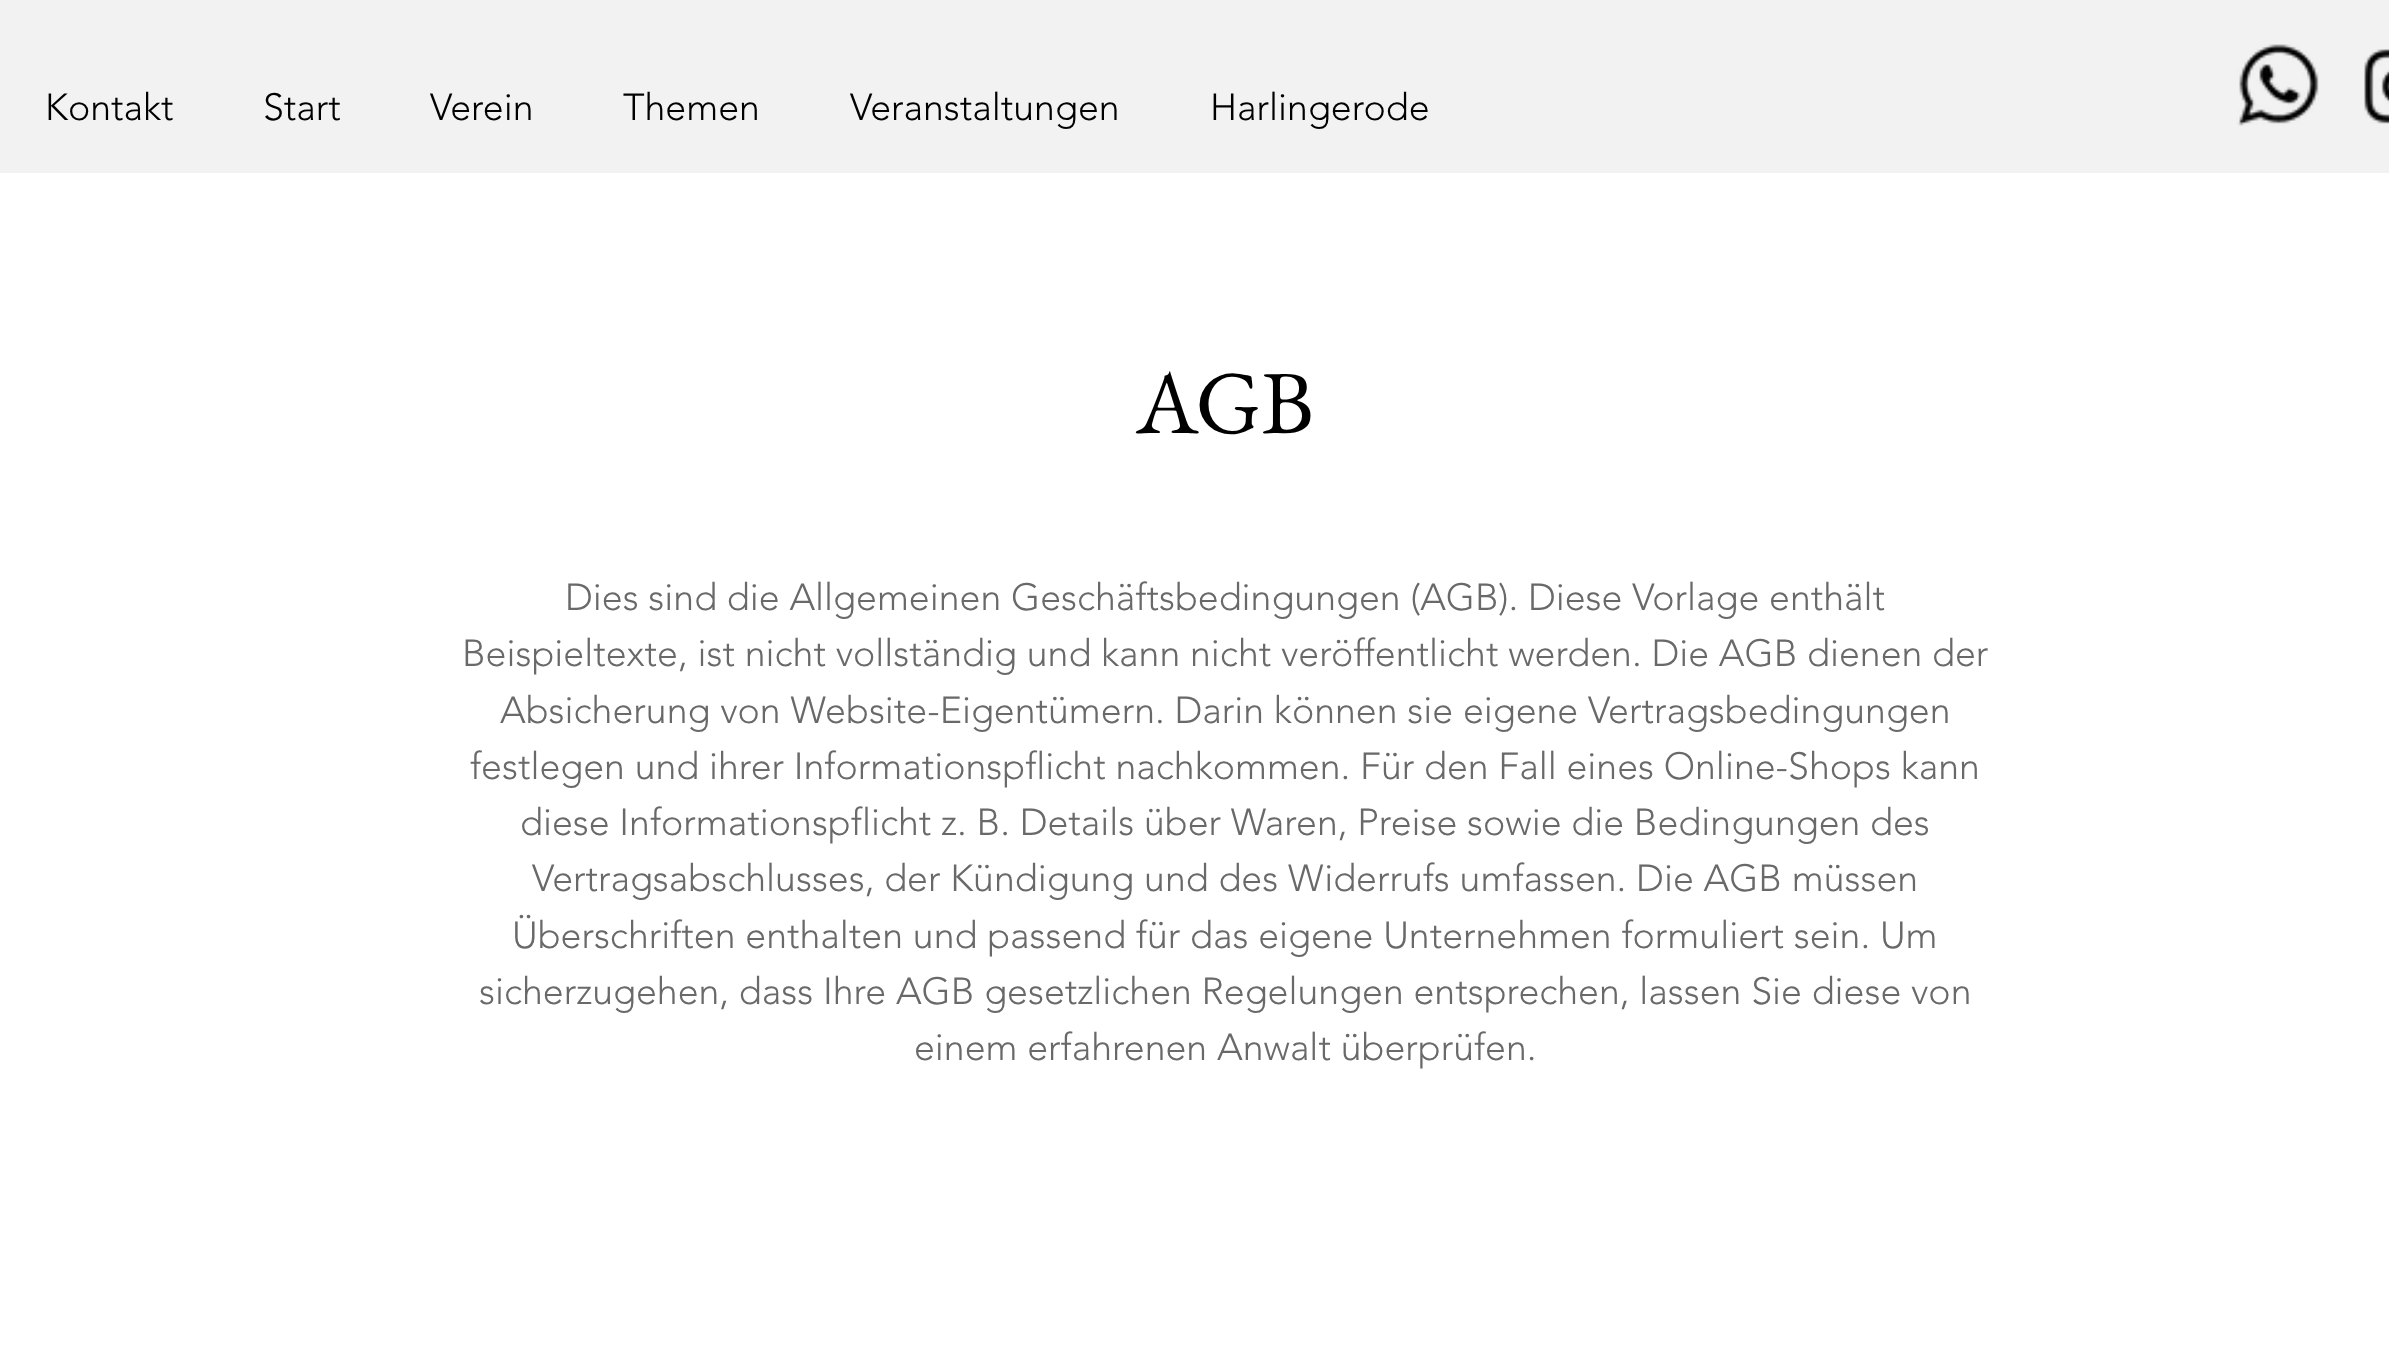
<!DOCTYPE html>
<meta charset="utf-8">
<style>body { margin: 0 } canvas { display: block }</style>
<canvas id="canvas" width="2389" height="1366"></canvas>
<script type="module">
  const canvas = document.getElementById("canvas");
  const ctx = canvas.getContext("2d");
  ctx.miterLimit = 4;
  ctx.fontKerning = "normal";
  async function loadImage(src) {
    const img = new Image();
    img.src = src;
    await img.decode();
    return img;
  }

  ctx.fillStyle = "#ffffff";
  ctx.fillRect(0, 0, 2389, 1366);
  ctx.fillStyle = "#f2f2f2";
  ctx.fillRect(0, 0, 2389, 173);
  ctx.font = "300 37.5px 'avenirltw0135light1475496'";
  ctx.fillStyle = "#000000";
  ctx.fillText("Kontakt", 45, 120);
  ctx.fillText("Start", 263, 120);
  ctx.fillText("Verein", 430, 120);
  ctx.fillText("Themen", 623, 120);
  ctx.fillText("Veranstaltungen", 850, 120);
  ctx.fillText("Harlingerode", 1210, 120);
  ctx.drawImage(await loadImage("img1.png"), 2237, 44, 82, 82);
  ctx.drawImage(await loadImage("img2.png"), 2364, 49, 25, 75);
  ctx.font = "90px EB Garamond";
  ctx.fillText("AGB", 1136, 433);
  ctx.font = "300 37.5px 'avenirltw0135light1475496'";
  ctx.fillStyle = "#696969";
  ctx.fillText("Dies sind die Allgemeinen Geschäftsbedingungen (AGB). Diese Vorlage enthält", 565, 610);
  ctx.fillText("Beispieltexte, ist nicht vollständig und kann nicht veröffentlicht werden. Die AGB dienen der", 462, 666);
  ctx.fillText("Absicherung von Website-Eigentümern. Darin können sie eigene Vertragsbedingungen", 500, 723);
  ctx.fillText("festlegen und ihrer Informationspflicht nachkommen. Für den Fall eines Online-Shops kann", 470, 779);
  ctx.fillText("diese Informationspflicht z. B. Details über Waren, Preise sowie die Bedingungen des", 520, 835);
  ctx.fillText("Vertragsabschlusses, der Kündigung und des Widerrufs umfassen. Die AGB müssen", 532, 891);
  ctx.fillText("Überschriften enthalten und passend für das eigene Unternehmen formuliert sein. Um", 512, 948);
  ctx.fillText("sicherzugehen, dass Ihre AGB gesetzlichen Regelungen entsprechen, lassen Sie diese von", 479, 1004);
  ctx.fillText("einem erfahrenen Anwalt überprüfen.", 914, 1060);
</script>
